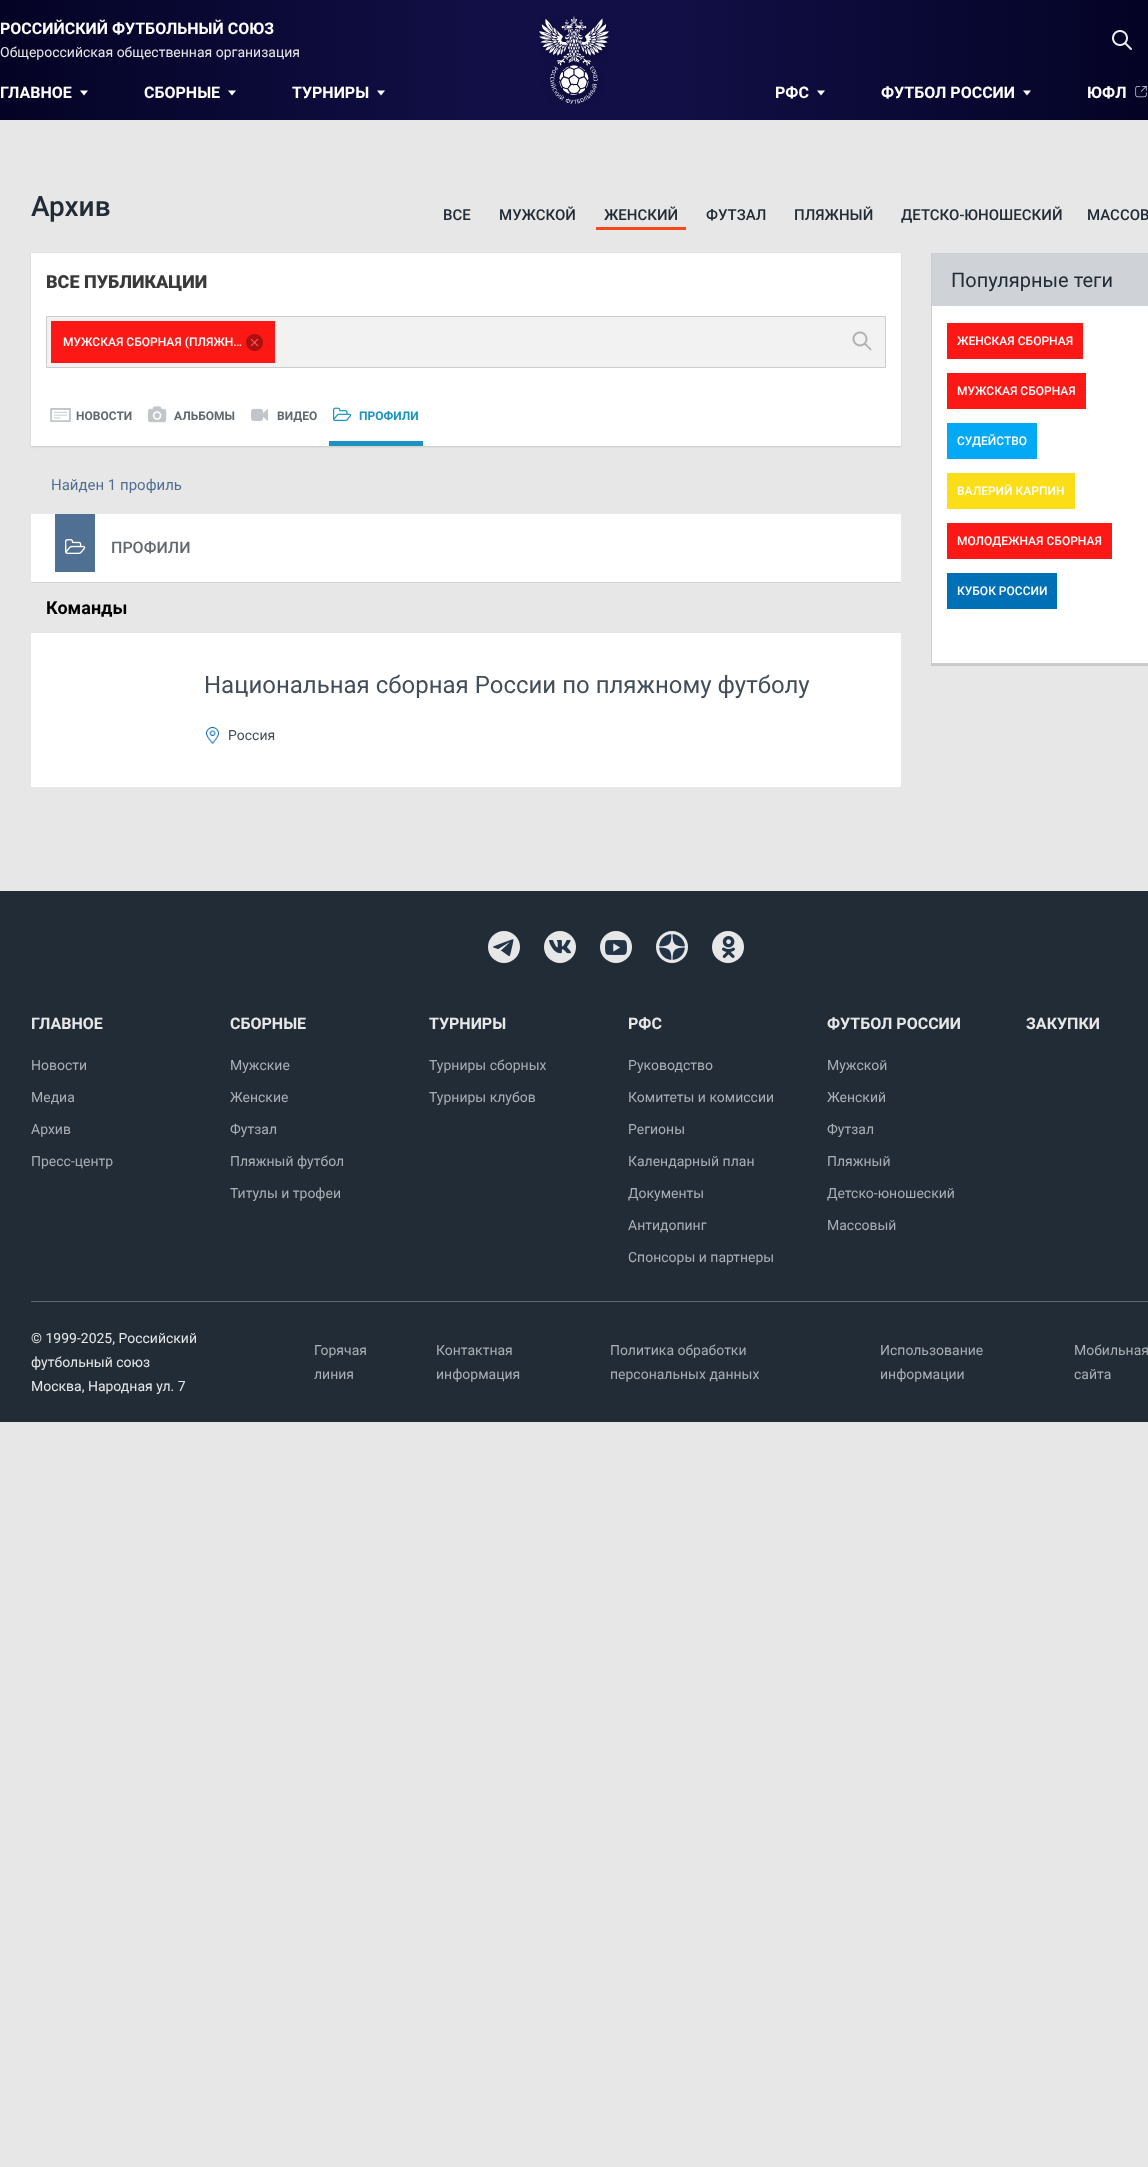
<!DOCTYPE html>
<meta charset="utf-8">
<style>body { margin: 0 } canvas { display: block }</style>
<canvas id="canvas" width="1148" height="2167"></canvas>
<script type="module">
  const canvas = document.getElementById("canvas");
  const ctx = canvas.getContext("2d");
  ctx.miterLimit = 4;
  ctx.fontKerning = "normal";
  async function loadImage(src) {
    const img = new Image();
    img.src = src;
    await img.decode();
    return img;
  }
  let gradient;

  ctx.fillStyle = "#e7e7e7";
  ctx.fillRect(0, 0, 1148, 2167);
  gradient = ctx.createLinearGradient(0, 60, 1148, 60);
  gradient.addColorStop(0, "#040325");
  gradient.addColorStop(0.41, "#110f45");
  gradient.addColorStop(0.59, "#110f45");
  gradient.addColorStop(1, "#040325");
  ctx.fillStyle = gradient;
  ctx.fillRect(0, 0, 1148, 120);
  ctx.font = "bold 16px Roboto";
  ctx.fillStyle = "#ffffff";
  ctx.fillText("РОССИЙСКИЙ ФУТБОЛЬНЫЙ СОЮЗ", 0, 34);
  ctx.font = "14px Roboto";
  ctx.fillStyle = "#e7e7e7";
  ctx.fillText("Общероссийская общественная организация", 0, 57);
  ctx.drawImage(await loadImage("img1.png"), 539, 16, 70, 88);
  ctx.drawImage(await loadImage("img2.png"), 1112, 30, 20, 20);
  ctx.font = "bold 16px Roboto";
  ctx.fillStyle = "#ffffff";
  ctx.fillText("ГЛАВНОЕ", 0, 98);
  ctx.beginPath();
  ctx.moveTo(80, 90.5);
  ctx.lineTo(88, 90.5);
  ctx.lineTo(84, 95.5);
  ctx.closePath();
  ctx.fill();
  ctx.fillText("СБОРНЫЕ", 144, 98);
  ctx.beginPath();
  ctx.moveTo(228, 90.5);
  ctx.lineTo(236, 90.5);
  ctx.lineTo(232, 95.5);
  ctx.closePath();
  ctx.fill();
  ctx.fillText("ТУРНИРЫ", 292, 98);
  ctx.beginPath();
  ctx.moveTo(377, 90.5);
  ctx.lineTo(385, 90.5);
  ctx.lineTo(381, 95.5);
  ctx.closePath();
  ctx.fill();
  ctx.fillText("РФС", 775, 98);
  ctx.beginPath();
  ctx.moveTo(817, 90.5);
  ctx.lineTo(825, 90.5);
  ctx.lineTo(821, 95.5);
  ctx.closePath();
  ctx.fill();
  ctx.fillText("ФУТБОЛ РОССИИ", 881, 98);
  ctx.beginPath();
  ctx.moveTo(1023, 90.5);
  ctx.lineTo(1031, 90.5);
  ctx.lineTo(1027, 95.5);
  ctx.closePath();
  ctx.fill();
  ctx.fillText("ЮФЛ", 1087, 98);
  ctx.drawImage(await loadImage("img3.png"), 1135, 86, 12, 12);
  ctx.font = "500 28px Roboto";
  ctx.fillStyle = "#222c37";
  ctx.fillText("Архив", 31, 216);
  ctx.font = "500 15px Roboto";
  ctx.fillText("ВСЕ", 443, 220);
  ctx.fillText("МУЖСКОЙ", 499, 220);
  ctx.fillStyle = "#fe4817";
  ctx.fillRect(596, 227, 90, 3);
  ctx.fillStyle = "#222c37";
  ctx.fillText("ЖЕНСКИЙ", 604, 220);
  ctx.fillText("ФУТЗАЛ", 706, 220);
  ctx.fillText("ПЛЯЖНЫЙ", 794, 220);
  ctx.fillText("ДЕТСКО-ЮНОШЕСКИЙ", 901, 220);
  ctx.fillText("МАССОВ", 1087, 220);
  ctx.fillStyle = "#c9c9c9";
  ctx.filter = "blur(1px)";
  ctx.beginPath();
  ctx.rect(31, 254, 870, 193);
  ctx.fill();
  ctx.filter = "none";
  ctx.fillStyle = "#ffffff";
  ctx.fillRect(31, 253, 870, 193);
  ctx.font = "900 18px Roboto";
  ctx.fillStyle = "#3a3a3a";
  ctx.fillText("ВСЕ ПУБЛИКАЦИИ", 46, 288);
  ctx.fillStyle = "#f2f2f2";
  ctx.beginPath();
  ctx.rect(46.5, 316.5, 839, 51);
  ctx.fill();
  ctx.strokeStyle = "#cccccc";
  ctx.stroke();
  ctx.fillStyle = "#fc1814";
  ctx.fillRect(51, 321, 224, 42);
  ctx.font = "500 12px Roboto";
  ctx.fillStyle = "#ffffff";
  ctx.fillText("МУЖСКАЯ СБОРНАЯ (ПЛЯЖН…", 63, 346);
  ctx.drawImage(await loadImage("img4.png"), 246, 334, 17, 17);
  ctx.drawImage(await loadImage("img5.png"), 852, 331, 20, 20);
  ctx.drawImage(await loadImage("img6.png"), 50, 408, 21, 14);
  ctx.font = "bold 12px Roboto";
  ctx.fillStyle = "#63686e";
  ctx.fillText("НОВОСТИ", 76, 420);
  ctx.drawImage(await loadImage("img7.png"), 148, 406, 19, 17);
  ctx.fillText("АЛЬБОМЫ", 174, 420);
  ctx.drawImage(await loadImage("img8.png"), 251, 408, 17, 13);
  ctx.fillText("ВИДЕО", 277, 420);
  ctx.fillStyle = "#1c94c1";
  ctx.fillRect(329, 441, 94, 5);
  ctx.drawImage(await loadImage("img9.png"), 333, 407, 19, 14);
  ctx.fillText("ПРОФИЛИ", 359, 420);
  ctx.font = "15px Roboto";
  ctx.fillStyle = "#507093";
  ctx.fillText("Найден 1 профиль", 51, 490);
  ctx.fillStyle = "#ffffff";
  ctx.fillRect(31, 514, 870, 68);
  ctx.fillStyle = "#d3d3d3";
  ctx.fillRect(31, 582, 870, 1);
  ctx.fillStyle = "#507093";
  ctx.fillRect(55, 514, 40, 58);
  ctx.drawImage(await loadImage("img10.png"), 65, 539, 21, 15);
  ctx.font = "500 16px Roboto";
  ctx.fillStyle = "#63686e";
  ctx.fillText("ПРОФИЛИ", 111, 553);
  ctx.font = "bold 18px Roboto";
  ctx.fillStyle = "#000000";
  ctx.fillText("Команды", 46, 614);
  ctx.fillStyle = "#ffffff";
  ctx.fillRect(31, 633, 870, 154);
  ctx.font = "24px Roboto";
  ctx.fillStyle = "#424d58";
  ctx.fillText("Национальная сборная России по пляжному футболу", 204, 693);
  ctx.drawImage(await loadImage("img11.png"), 206, 727, 13, 17);
  ctx.font = "14px Roboto";
  ctx.fillText("Россия", 228, 740);
  ctx.fillStyle = "#c9c9c9";
  ctx.fillRect(931, 664, 217, 2);
  ctx.fillStyle = "#ffffff";
  ctx.fillRect(932, 306, 216, 357);
  ctx.strokeStyle = "#cdcdcd";
  ctx.strokeRect(931.5, 253.5, 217, 410);
  ctx.fillStyle = "#cfd2d6";
  ctx.fillRect(932, 254, 216, 52);
  ctx.font = "20px Roboto";
  ctx.fillStyle = "#222c37";
  ctx.fillText("Популярные теги", 951, 287);
  ctx.fillStyle = "#fc1814";
  ctx.fillRect(947, 323, 136, 36);
  ctx.font = "500 12px Roboto";
  ctx.fillStyle = "#ffffff";
  ctx.fillText("ЖЕНСКАЯ СБОРНАЯ", 957, 345);
  ctx.fillStyle = "#fc1814";
  ctx.fillRect(947, 373, 139, 36);
  ctx.fillStyle = "#ffffff";
  ctx.fillText("МУЖСКАЯ СБОРНАЯ", 957, 395);
  ctx.fillStyle = "#03a9f4";
  ctx.fillRect(947, 423, 90, 36);
  ctx.fillStyle = "#ffffff";
  ctx.fillText("СУДЕЙСТВО", 957, 445);
  ctx.fillStyle = "#fbdd18";
  ctx.fillRect(947, 473, 128, 36);
  ctx.fillStyle = "#ffffff";
  ctx.fillText("ВАЛЕРИЙ КАРПИН", 957, 495);
  ctx.fillStyle = "#fc1814";
  ctx.fillRect(947, 523, 165, 36);
  ctx.fillStyle = "#ffffff";
  ctx.fillText("МОЛОДЕЖНАЯ СБОРНАЯ", 957, 545);
  ctx.fillStyle = "#0070b6";
  ctx.fillRect(947, 573, 110, 36);
  ctx.fillStyle = "#ffffff";
  ctx.fillText("КУБОК РОССИИ", 957, 595);
  ctx.fillStyle = "#222c37";
  ctx.fillRect(0, 891, 1148, 531);
  ctx.fillStyle = "#e7e7e7";
  ctx.beginPath();
  ctx.arc(504, 947, 16, 0, Math.PI * 2);
  ctx.fill();
  ctx.drawImage(await loadImage("img12.png"), 493, 939, 21, 17);
  ctx.beginPath();
  ctx.arc(560, 947, 16, 0, Math.PI * 2);
  ctx.fill();
  ctx.drawImage(await loadImage("img13.png"), 549, 940, 22, 14);
  ctx.beginPath();
  ctx.arc(616, 947, 16, 0, Math.PI * 2);
  ctx.fill();
  ctx.drawImage(await loadImage("img14.png"), 605, 940, 22, 15);
  ctx.beginPath();
  ctx.arc(672, 947, 16, 0, Math.PI * 2);
  ctx.fill();
  ctx.drawImage(await loadImage("img15.png"), 659, 934, 26, 26);
  ctx.beginPath();
  ctx.arc(728, 947, 16, 0, Math.PI * 2);
  ctx.fill();
  ctx.drawImage(await loadImage("img16.png"), 722, 936, 13, 22);
  ctx.font = "bold 16px Roboto";
  ctx.fillText("ГЛАВНОЕ", 31, 1029);
  ctx.font = "14px Roboto";
  ctx.fillStyle = "#aaafb3";
  ctx.fillText("Новости", 31, 1070);
  ctx.fillText("Медиа", 31, 1102);
  ctx.fillText("Архив", 31, 1134);
  ctx.fillText("Пресс-центр", 31, 1166);
  ctx.font = "bold 16px Roboto";
  ctx.fillStyle = "#e7e7e7";
  ctx.fillText("СБОРНЫЕ", 230, 1029);
  ctx.font = "14px Roboto";
  ctx.fillStyle = "#aaafb3";
  ctx.fillText("Мужские", 230, 1070);
  ctx.fillText("Женские", 230, 1102);
  ctx.fillText("Футзал", 230, 1134);
  ctx.fillText("Пляжный футбол", 230, 1166);
  ctx.fillText("Титулы и трофеи", 230, 1198);
  ctx.font = "bold 16px Roboto";
  ctx.fillStyle = "#e7e7e7";
  ctx.fillText("ТУРНИРЫ", 429, 1029);
  ctx.font = "14px Roboto";
  ctx.fillStyle = "#aaafb3";
  ctx.fillText("Турниры сборных", 429, 1070);
  ctx.fillText("Турниры клубов", 429, 1102);
  ctx.font = "bold 16px Roboto";
  ctx.fillStyle = "#e7e7e7";
  ctx.fillText("РФС", 628, 1029);
  ctx.font = "14px Roboto";
  ctx.fillStyle = "#aaafb3";
  ctx.fillText("Руководство", 628, 1070);
  ctx.fillText("Комитеты и комиссии", 628, 1102);
  ctx.fillText("Регионы", 628, 1134);
  ctx.fillText("Календарный план", 628, 1166);
  ctx.fillText("Документы", 628, 1198);
  ctx.fillText("Антидопинг", 628, 1230);
  ctx.fillText("Спонсоры и партнеры", 628, 1262);
  ctx.font = "bold 16px Roboto";
  ctx.fillStyle = "#e7e7e7";
  ctx.fillText("ФУТБОЛ РОССИИ", 827, 1029);
  ctx.font = "14px Roboto";
  ctx.fillStyle = "#aaafb3";
  ctx.fillText("Мужской", 827, 1070);
  ctx.fillText("Женский", 827, 1102);
  ctx.fillText("Футзал", 827, 1134);
  ctx.fillText("Пляжный", 827, 1166);
  ctx.fillText("Детско-юношеский", 827, 1198);
  ctx.fillText("Массовый", 827, 1230);
  ctx.font = "bold 16px Roboto";
  ctx.fillStyle = "#e7e7e7";
  ctx.fillText("ЗАКУПКИ", 1026, 1029);
  ctx.fillStyle = "#5f6770";
  ctx.fillRect(31, 1301, 1117, 1);
  ctx.font = "14px Roboto";
  ctx.fillStyle = "#e7e7e7";
  ctx.fillText("© 1999-2025, Российский", 31, 1343);
  ctx.fillText("футбольный союз", 31, 1367);
  ctx.fillText("Москва, Народная ул. 7", 31, 1391);
  ctx.fillStyle = "#aaafb3";
  ctx.fillText("Горячая", 314, 1355);
  ctx.fillText("линия", 314, 1379);
  ctx.fillText("Контактная", 436, 1355);
  ctx.fillText("информация", 436, 1379);
  ctx.fillText("Политика обработки", 610, 1355);
  ctx.fillText("персональных данных", 610, 1379);
  ctx.fillText("Использование", 880, 1355);
  ctx.fillText("информации", 880, 1379);
  ctx.fillText("Мобильная", 1074, 1355);
  ctx.fillText("сайта", 1074, 1379);
</script>
